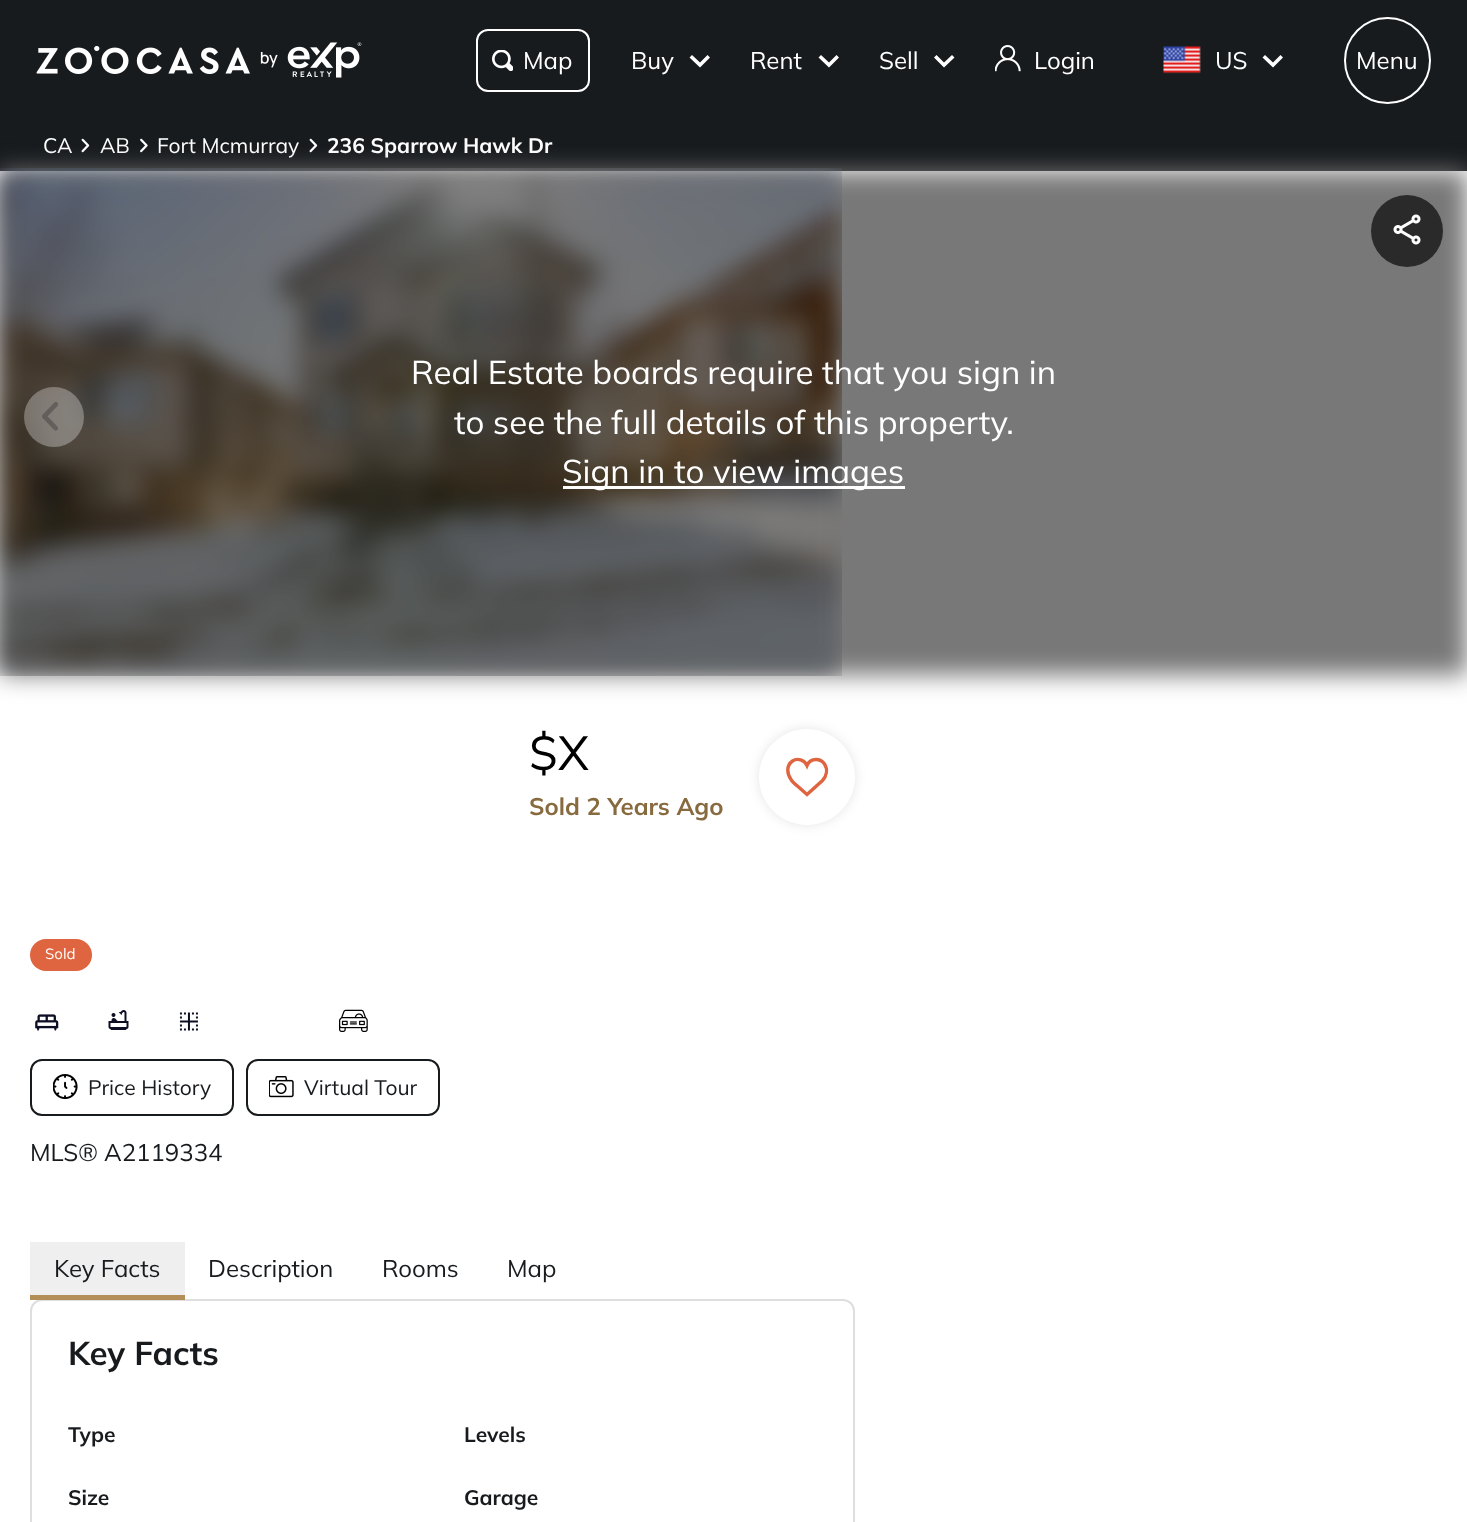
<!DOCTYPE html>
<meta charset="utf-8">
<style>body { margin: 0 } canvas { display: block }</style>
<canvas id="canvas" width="1467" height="1522"></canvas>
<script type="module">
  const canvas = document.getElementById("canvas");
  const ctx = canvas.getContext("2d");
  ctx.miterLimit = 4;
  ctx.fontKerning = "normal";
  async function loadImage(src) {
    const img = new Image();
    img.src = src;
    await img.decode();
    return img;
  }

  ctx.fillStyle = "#181b1e";
  ctx.fillRect(0, 0, 1467, 1522);
  ctx.drawImage(await loadImage("img1.png"), 36, 42, 326, 36);
  ctx.beginPath();
  ctx.roundRect(477, 30, 112, 61, 11);
  ctx.strokeStyle = "#ffffff";
  ctx.lineWidth = 2;
  ctx.stroke();
  ctx.drawImage(await loadImage("img2.png"), 492, 50, 21, 21);
  ctx.font = "200 24px Mulish";
  ctx.fillStyle = "#ffffff";
  ctx.fillText("Map", 523, 69);
  ctx.fillText("Buy", 631, 69);
  ctx.beginPath();
  ctx.moveTo(707.5, 55);
  ctx.lineTo(700, 62.5);
  ctx.lineTo(692, 55);
  ctx.lineTo(689.5, 57.5);
  ctx.lineTo(700, 67.5);
  ctx.lineTo(710, 57.5);
  ctx.closePath();
  ctx.fill();
  ctx.fillText("Rent", 750, 69);
  ctx.beginPath();
  ctx.moveTo(836.5, 55);
  ctx.lineTo(829, 62.5);
  ctx.lineTo(821, 55);
  ctx.lineTo(818.5, 57.5);
  ctx.lineTo(829, 67.5);
  ctx.lineTo(839, 57.5);
  ctx.closePath();
  ctx.fill();
  ctx.fillText("Sell", 879, 69);
  ctx.beginPath();
  ctx.moveTo(952, 55);
  ctx.lineTo(944, 62.5);
  ctx.lineTo(936.5, 55);
  ctx.lineTo(934, 57.5);
  ctx.lineTo(944, 67.5);
  ctx.lineTo(954.5, 57.5);
  ctx.closePath();
  ctx.fill();
  ctx.drawImage(await loadImage("img3.png"), 995, 45, 26, 27);
  ctx.fillText("Login", 1034, 69);
  ctx.drawImage(await loadImage("img4.png"), 1163, 46, 38, 28);
  ctx.fillText("US", 1215, 69);
  ctx.beginPath();
  ctx.moveTo(1280.5, 55);
  ctx.lineTo(1273, 62.5);
  ctx.lineTo(1265, 55);
  ctx.lineTo(1262.5, 57.5);
  ctx.lineTo(1273, 67.5);
  ctx.lineTo(1283, 57.5);
  ctx.closePath();
  ctx.fill();
  ctx.beginPath();
  ctx.arc(1387.5, 60.5, 42.5, 0, Math.PI * 2);
  ctx.stroke();
  ctx.fillText("Menu", 1356, 69);
  ctx.fillRect(0, 171, 1467, 1351);
  ctx.font = "200 21px Mulish";
  ctx.fillText("CA", 43, 153);
  ctx.drawImage(await loadImage("img5.png"), 81, 138, 9, 15);
  ctx.fillText("AB", 100, 153);
  ctx.drawImage(await loadImage("img6.png"), 140, 138, 8, 15);
  ctx.fillText("Fort Mcmurray", 157, 153);
  ctx.drawImage(await loadImage("img5.png"), 309, 138, 9, 15);
  ctx.font = "200 21px 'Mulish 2'";
  ctx.fillText("236 Sparrow Hawk Dr", 327, 153);
  ctx.fillStyle = "#787878";
  ctx.filter = "blur(12px)";
  ctx.beginPath();
  ctx.rect(0, 171, 1467, 504);
  ctx.fill();
  ctx.filter = "none";
  ctx.drawImage(await loadImage("img7.png"), 0, 168, 842, 508);
  ctx.fillStyle = "rgba(0, 0, 0, 0.65)";
  ctx.beginPath();
  ctx.arc(1407, 231, 36, 0, Math.PI * 2);
  ctx.fill();
  ctx.drawImage(await loadImage("img8.png"), 1393, 214, 28, 31);
  ctx.fillStyle = "rgba(255, 255, 255, 0.3)";
  ctx.beginPath();
  ctx.arc(54, 417, 30, 0, Math.PI * 2);
  ctx.fill();
  ctx.drawImage(await loadImage("img9.png"), 42, 402, 17, 29);
  ctx.font = "200 33px Mulish";
  ctx.fillStyle = "#ffffff";
  ctx.fillText("Real Estate boards require that you sign in", 411, 384);
  ctx.fillText("to see the full details of this property.", 454, 434);
  ctx.fillRect(563, 486, 342, 3);
  ctx.fillText("Sign in to view images", 562, 483);
  ctx.font = "200 48px Mulish";
  ctx.fillStyle = "#000000";
  ctx.fillText("$X", 529, 770);
  ctx.font = "200 24px 'Mulish 2'";
  ctx.fillStyle = "#886a3f";
  ctx.fillText("Sold 2 Years Ago", 529, 815);
  ctx.fillStyle = "rgba(0, 0, 0, 0.1)";
  ctx.filter = "blur(6px)";
  ctx.beginPath();
  ctx.roundRect(759, 729, 96, 96, 48);
  ctx.fill();
  ctx.filter = "none";
  ctx.fillStyle = "#ffffff";
  ctx.beginPath();
  ctx.arc(807, 777, 48, 0, Math.PI * 2);
  ctx.fill();
  ctx.beginPath();
  ctx.moveTo(816, 759.5);
  ctx.bezierCurveTo(819.5, 759.5, 822.5, 761, 824.5, 764);
  ctx.bezierCurveTo(828, 769.5, 826.5, 776, 822.5, 780.5);
  ctx.lineTo(807, 794.5);
  ctx.lineTo(798, 786.5);
  ctx.bezierCurveTo(795.5, 784.5, 792.5, 782.5, 791, 779.5);
  ctx.bezierCurveTo(787, 774, 786, 765.5, 792.5, 761);
  ctx.bezierCurveTo(797.5, 757.5, 804.5, 760, 807, 765.5);
  ctx.bezierCurveTo(808.5, 762, 812, 759.5, 816, 759.5);
  ctx.closePath();
  ctx.strokeStyle = "#df6541";
  ctx.lineWidth = 3.4;
  ctx.stroke();
  ctx.fillStyle = "#df6541";
  ctx.beginPath();
  ctx.roundRect(30, 939, 62, 32, 16);
  ctx.fill();
  ctx.font = "200 15px Mulish";
  ctx.fillStyle = "#ffffff";
  ctx.fillText("Sold", 45, 959);
  ctx.drawImage(await loadImage("img10.png"), 35, 1014, 24, 17);
  ctx.drawImage(await loadImage("img11.png"), 108, 1010, 21, 20);
  ctx.drawImage(await loadImage("img12.png"), 179, 1012, 19, 19);
  ctx.drawImage(await loadImage("img13.png"), 339, 1009, 29, 23);
  ctx.beginPath();
  ctx.roundRect(31, 1060, 202, 55, 11);
  ctx.strokeStyle = "#181b1e";
  ctx.lineWidth = 2;
  ctx.stroke();
  ctx.drawImage(await loadImage("img14.png"), 53, 1074, 25, 26);
  ctx.font = "200 21px Mulish";
  ctx.fillStyle = "#181b1e";
  ctx.fillText("Price History", 88, 1095);
  ctx.beginPath();
  ctx.roundRect(247, 1060, 192, 55, 11);
  ctx.stroke();
  ctx.drawImage(await loadImage("img15.png"), 269, 1076, 25, 22);
  ctx.fillText("Virtual Tour", 304, 1095);
  ctx.font = "200 24px Mulish";
  ctx.fillText("MLS® A2119334", 30, 1161);
  ctx.fillStyle = "#efefef";
  ctx.fillRect(30, 1242, 155, 53);
  ctx.beginPath();
  ctx.roundRect(31, 1300, 823, 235, 11);
  ctx.strokeStyle = "#dedede";
  ctx.stroke();
  ctx.fillStyle = "#b38e57";
  ctx.fillRect(30, 1295, 155, 5);
  ctx.fillStyle = "#181b1e";
  ctx.fillText("Key Facts", 54, 1277);
  ctx.fillText("Description", 208, 1277);
  ctx.fillText("Rooms", 382, 1277);
  ctx.fillText("Map", 507, 1277);
  ctx.font = "200 33px 'Mulish 2'";
  ctx.fillText("Key Facts", 68, 1365);
  ctx.font = "200 21px 'Mulish 2'";
  ctx.fillText("Type", 68, 1442);
  ctx.fillText("Levels", 464, 1442);
  ctx.fillText("Size", 68, 1505);
  ctx.fillText("Garage", 464, 1505);
</script>
